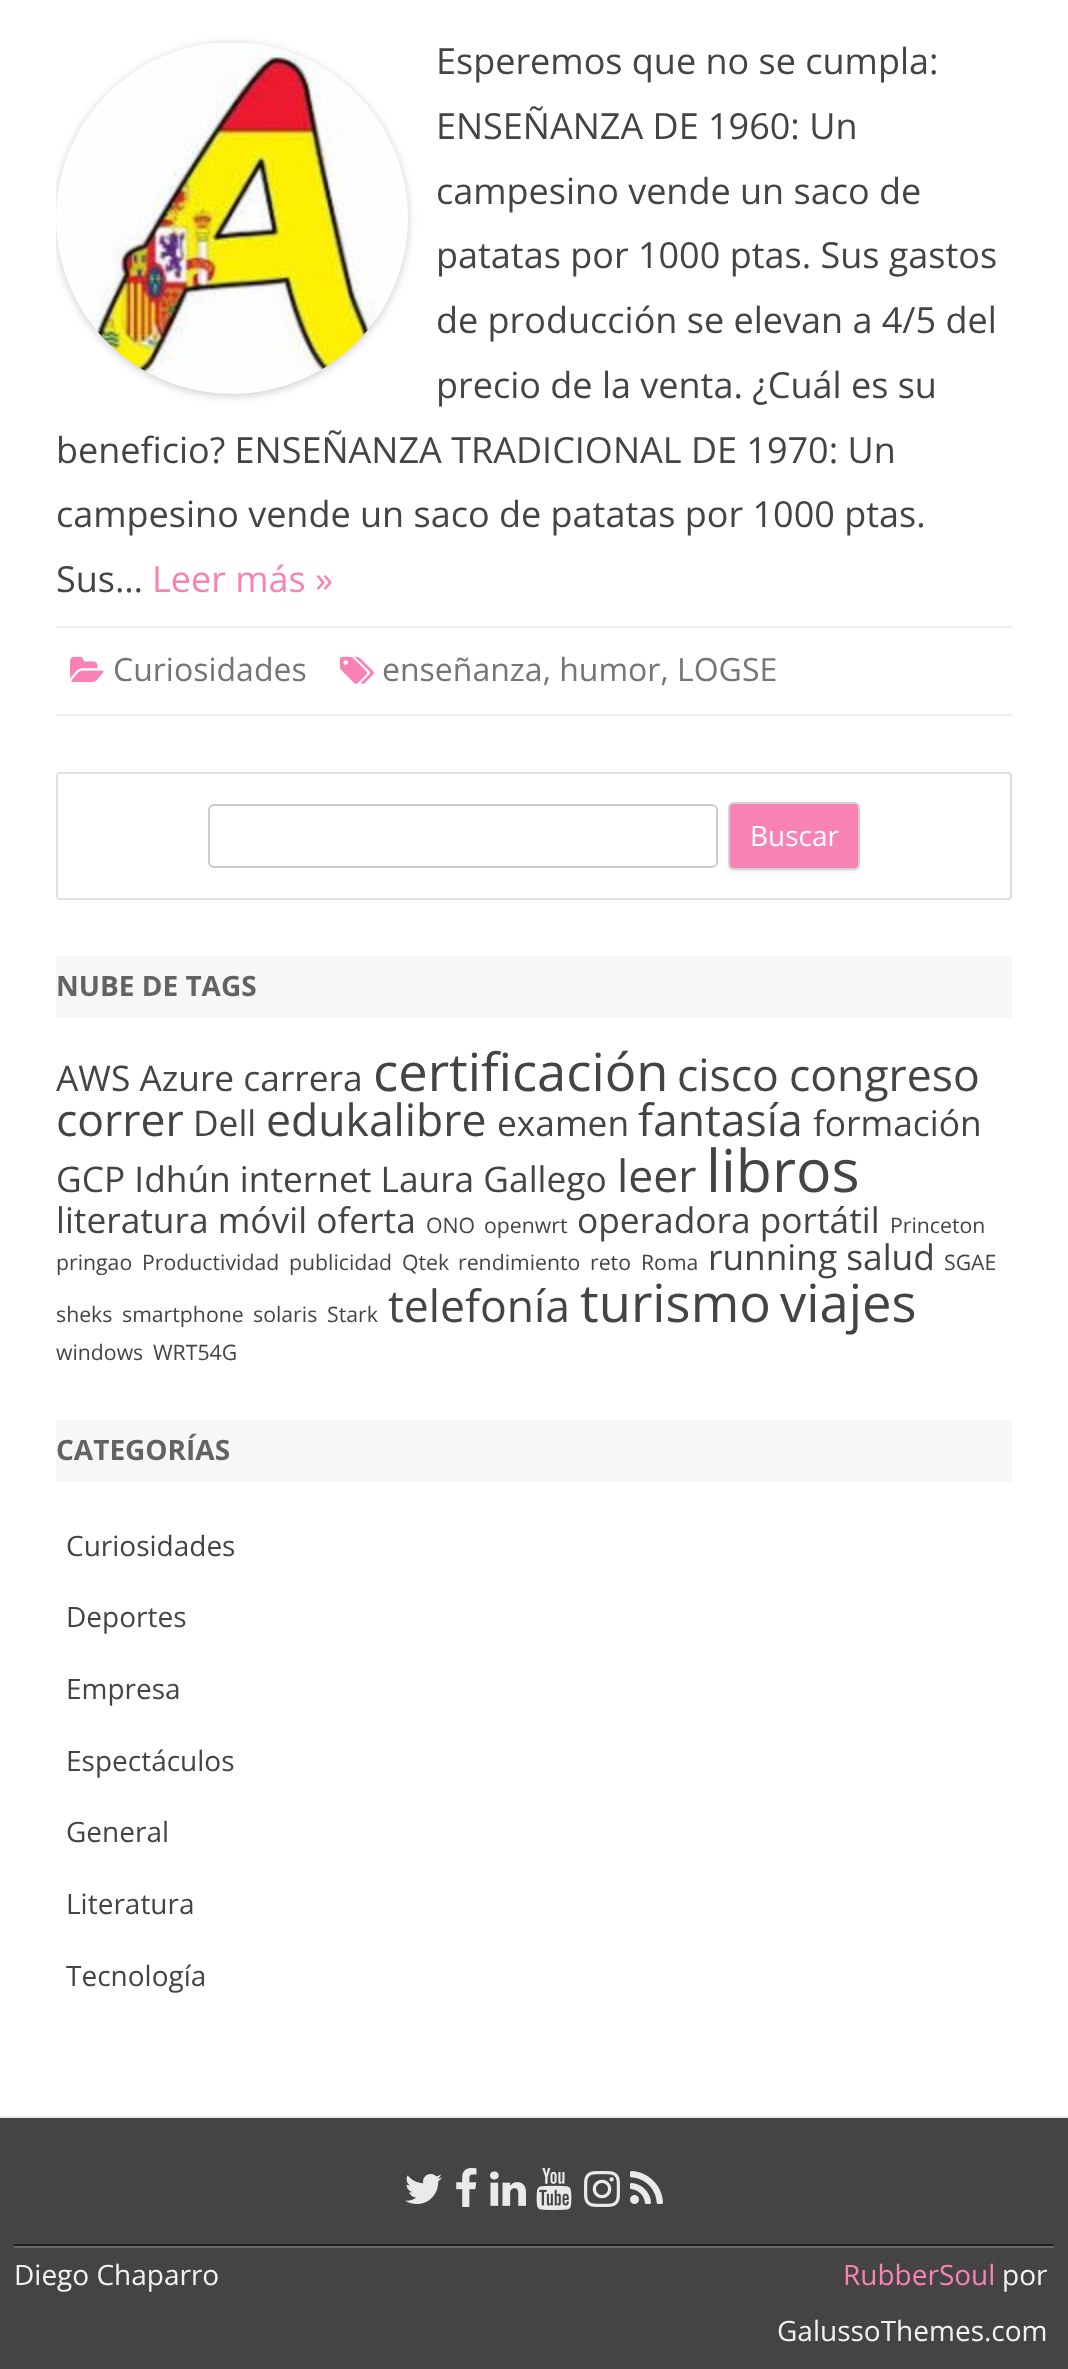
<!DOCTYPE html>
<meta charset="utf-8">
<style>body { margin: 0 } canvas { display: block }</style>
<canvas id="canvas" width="1068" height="2369"></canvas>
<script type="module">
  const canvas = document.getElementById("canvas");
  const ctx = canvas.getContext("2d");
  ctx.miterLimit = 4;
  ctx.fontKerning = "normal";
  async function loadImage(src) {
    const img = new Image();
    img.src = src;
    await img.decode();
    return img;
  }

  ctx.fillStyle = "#ffffff";
  ctx.fillRect(0, 0, 1068, 2369);
  ctx.fillStyle = "#ededed";
  ctx.fillRect(56, 714, 956, 2);
  ctx.fillRect(56, 626, 956, 2);
  ctx.save();
  ctx.beginPath();
  ctx.rect(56, 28, 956, 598);
  ctx.clip();
  ctx.fillStyle = "rgba(0, 0, 0, 0.2)";
  ctx.filter = "blur(4px)";
  ctx.beginPath();
  ctx.roundRect(56, 44, 352, 352, 176);
  ctx.fill();
  ctx.filter = "none";
  ctx.restore();
  ctx.drawImage(await loadImage("img1.png"), 56, 43, 352, 351);
  ctx.font = "36px Open Sans";
  ctx.fillStyle = "#444444";
  ctx.fillText("Esperemos que no se cumpla:", 436, 74);
  ctx.fillText("ENSEÑANZA DE 1960: Un", 436, 139);
  ctx.fillText("campesino vende un saco de", 436, 204);
  ctx.fillText("patatas por 1000 ptas. Sus gastos", 436, 268);
  ctx.fillText("de producción se elevan a 4/5 del", 436, 333);
  ctx.fillText("precio de la venta. ¿Cuál es su", 436, 398);
  ctx.fillText("beneficio? ENSEÑANZA TRADICIONAL DE 1970: Un", 56, 463);
  ctx.fillText("campesino vende un saco de patatas por 1000 ptas.", 56, 527);
  ctx.fillText("Sus…", 56, 592);
  ctx.fillStyle = "#f882b3";
  ctx.fillText("Leer más »", 152, 592);
  ctx.drawImage(await loadImage("img2.png"), 70, 656, 34, 26);
  ctx.font = "32px Open Sans";
  ctx.fillStyle = "#757575";
  ctx.fillText("Curiosidades", 113, 681);
  ctx.drawImage(await loadImage("img3.png"), 340, 656, 34, 28);
  ctx.fillText("enseñanza, humor, LOGSE", 382, 681);
  ctx.beginPath();
  ctx.roundRect(57, 773, 954, 126, 3);
  ctx.strokeStyle = "#e0e0e0";
  ctx.lineWidth = 2;
  ctx.stroke();
  ctx.beginPath();
  ctx.roundRect(209, 805, 508, 62, 5);
  ctx.strokeStyle = "#cccccc";
  ctx.stroke();
  ctx.fillStyle = "rgba(64, 64, 64, 0.1)";
  ctx.filter = "blur(2px)";
  ctx.beginPath();
  ctx.roundRect(728, 804, 132, 68, 6);
  ctx.fill();
  ctx.filter = "none";
  ctx.fillStyle = "#f882b3";
  ctx.beginPath();
  ctx.roundRect(729, 803, 130, 66, 5);
  ctx.fill();
  ctx.strokeStyle = "#d2d2d2";
  ctx.stroke();
  ctx.font = "28px Open Sans";
  ctx.fillStyle = "#ffffff";
  ctx.fillText("Buscar", 750, 846);
  ctx.fillStyle = "#f7f7f7";
  ctx.fillRect(56, 956, 956, 62);
  ctx.font = "bold 28px Open Sans";
  ctx.fillStyle = "#636363";
  ctx.fillText("NUBE DE TAGS", 56, 996);
  ctx.font = "35.3px Open Sans";
  ctx.fillStyle = "#444444";
  ctx.fillText("AWS Azure carrera", 56, 1091);
  ctx.font = "52.5px Open Sans";
  ctx.fillText("certificación", 373, 1091);
  ctx.font = "44.5px Open Sans";
  ctx.fillText("cisco", 677, 1091);
  ctx.fillText("congreso", 789, 1091);
  ctx.fillText("correr", 56, 1136);
  ctx.font = "35.3px Open Sans";
  ctx.fillText("Dell", 193, 1136);
  ctx.font = "44.5px Open Sans";
  ctx.fillText("edukalibre", 266, 1136);
  ctx.font = "35.3px Open Sans";
  ctx.fillText("examen", 497, 1136);
  ctx.font = "44.5px Open Sans";
  ctx.fillText("fantasía", 638, 1136);
  ctx.font = "35.3px Open Sans";
  ctx.fillText("formación", 813, 1136);
  ctx.fillText("GCP Idhún internet Laura Gallego", 56, 1192);
  ctx.font = "44.5px Open Sans";
  ctx.fillText("leer", 617, 1192);
  ctx.font = "59px Open Sans";
  ctx.fillText("libros", 706, 1192);
  ctx.font = "35.3px Open Sans";
  ctx.fillText("literatura móvil oferta", 56, 1233);
  ctx.font = "21.25px Open Sans";
  ctx.fillText("ONO", 426, 1233);
  ctx.fillText("openwrt", 484, 1233);
  ctx.font = "35.3px Open Sans";
  ctx.fillText("operadora portátil", 577, 1233);
  ctx.font = "21.25px Open Sans";
  ctx.fillText("Princeton", 890, 1233);
  ctx.fillText("pringao", 56, 1270);
  ctx.fillText("Productividad", 142, 1270);
  ctx.fillText("publicidad", 289, 1270);
  ctx.fillText("Qtek", 402, 1270);
  ctx.fillText("rendimiento", 458, 1270);
  ctx.fillText("reto", 590, 1270);
  ctx.fillText("Roma", 641, 1270);
  ctx.font = "35.3px Open Sans";
  ctx.fillText("running salud", 708, 1270);
  ctx.font = "21.25px Open Sans";
  ctx.fillText("SGAE", 944, 1270);
  ctx.fillText("sheks", 56, 1322);
  ctx.fillText("smartphone", 122, 1322);
  ctx.fillText("solaris", 253, 1322);
  ctx.fillText("Stark", 327, 1322);
  ctx.font = "44.5px Open Sans";
  ctx.fillText("telefonía", 388, 1322);
  ctx.font = "52.5px Open Sans";
  ctx.fillText("turismo", 580, 1322);
  ctx.fillText("viajes", 780, 1322);
  ctx.font = "21.25px Open Sans";
  ctx.fillText("windows", 56, 1360);
  ctx.fillText("WRT54G", 153, 1360);
  ctx.fillStyle = "#f7f7f7";
  ctx.fillRect(56, 1420, 956, 62);
  ctx.font = "bold 28px Open Sans";
  ctx.fillStyle = "#636363";
  ctx.fillText("CATEGORÍAS", 56, 1460);
  ctx.font = "28px Open Sans";
  ctx.fillStyle = "#444444";
  ctx.fillText("Curiosidades", 66, 1556);
  ctx.fillText("Deportes", 66, 1627);
  ctx.fillText("Empresa", 66, 1699);
  ctx.fillText("Espectáculos", 66, 1771);
  ctx.fillText("General", 66, 1842);
  ctx.fillText("Literatura", 66, 1914);
  ctx.fillText("Tecnología", 66, 1986);
  ctx.fillRect(0, 2118, 1068, 251);
  ctx.fillStyle = "#ededed";
  ctx.fillRect(0, 2116, 1068, 2);
  ctx.drawImage(await loadImage("img4.png"), 405, 2174, 37, 30);
  ctx.drawImage(await loadImage("img5.png"), 456, 2168, 21, 39);
  ctx.drawImage(await loadImage("img6.png"), 490, 2171, 36, 35);
  ctx.drawImage(await loadImage("img7.png"), 536, 2168, 36, 42);
  ctx.drawImage(await loadImage("img8.png"), 584, 2171, 36, 36);
  ctx.drawImage(await loadImage("img9.png"), 630, 2171, 33, 33);
  ctx.fillStyle = "#222222";
  ctx.fillRect(14, 2244, 1040, 2);
  ctx.fillStyle = "#666666";
  ctx.fillRect(14, 2246, 1040, 2);
  ctx.fillStyle = "#f2f2f2";
  ctx.fillText("Diego Chaparro", 14, 2285);
  ctx.fillStyle = "#f882b3";
  ctx.fillText("RubberSoul", 843, 2285);
  ctx.fillStyle = "#f2f2f2";
  ctx.fillText("por", 1002, 2285);
  ctx.fillText("GalussoThemes.com", 777, 2341);
</script>
